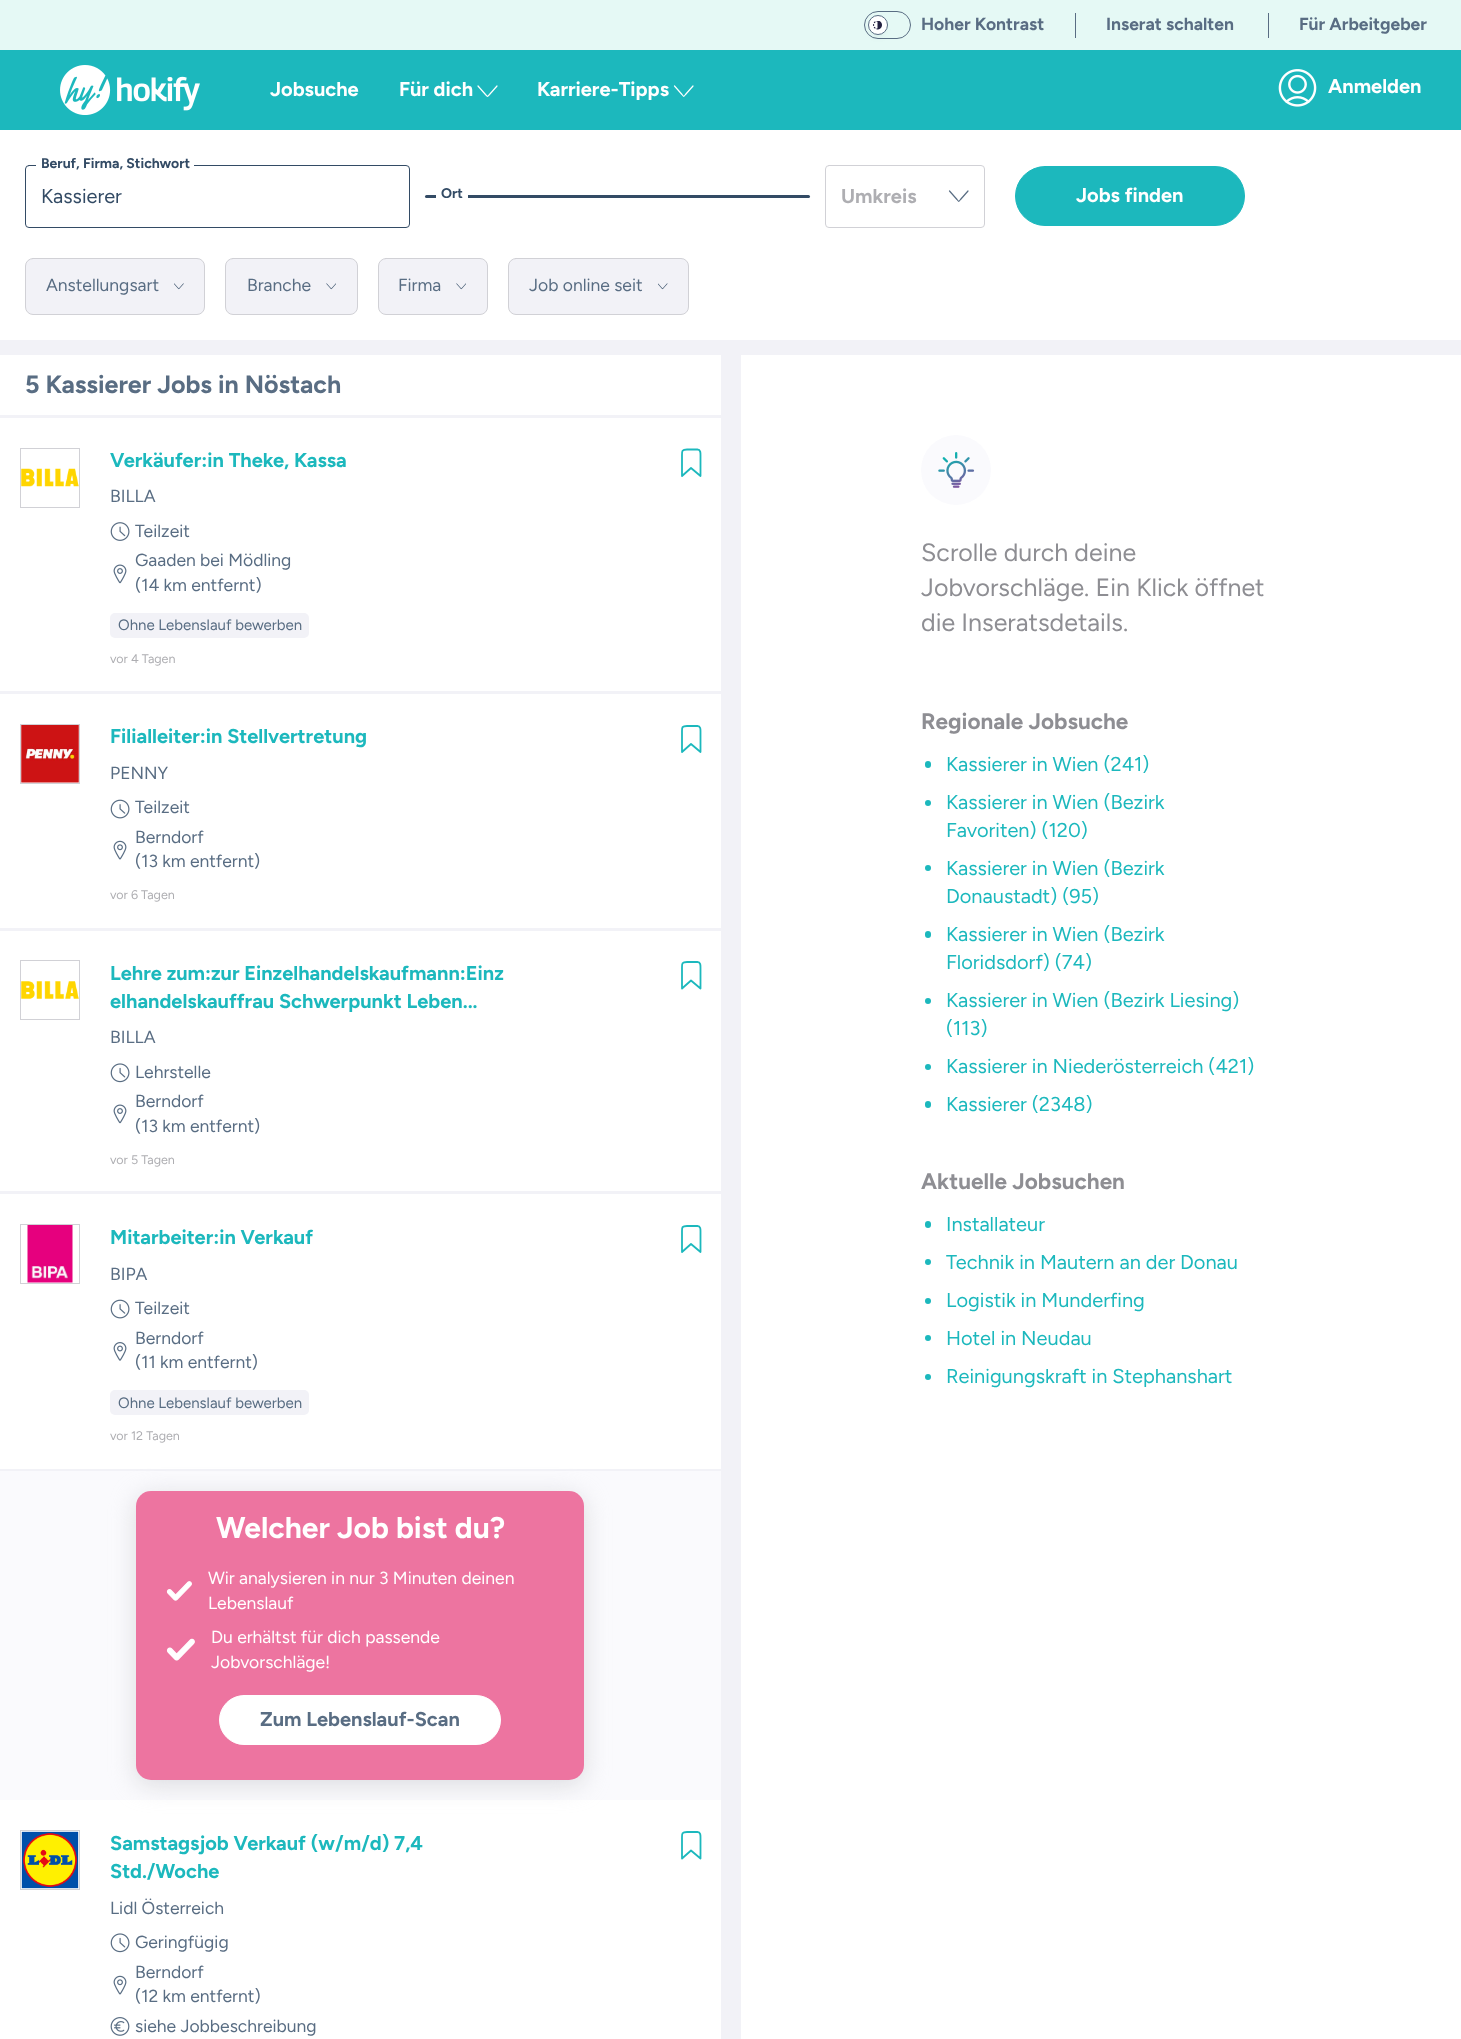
<!DOCTYPE html>
<meta charset="utf-8">
<style>body { margin: 0 } canvas { display: block }</style>
<canvas id="canvas" width="1461" height="2039"></canvas>
<script type="module">
  const canvas = document.getElementById("canvas");
  const ctx = canvas.getContext("2d");
  ctx.miterLimit = 4;
  ctx.fontKerning = "normal";
  async function loadImage(src) {
    const img = new Image();
    img.src = src;
    await img.decode();
    return img;
  }

  ctx.fillStyle = "#ffffff";
  ctx.fillRect(0, 0, 1461, 2039);
  ctx.fillStyle = "#1cb8bd";
  ctx.fillRect(0, 50, 1461, 80);
  ctx.fillStyle = "#e5f9f5";
  ctx.fillRect(0, 0, 1461, 50);
  ctx.beginPath();
  ctx.roundRect(864.5, 11.5, 46, 27, 13.5);
  ctx.strokeStyle = "#596d83";
  ctx.stroke();
  ctx.fillStyle = "rgba(0, 0, 0, 0.1)";
  ctx.filter = "blur(4px)";
  ctx.beginPath();
  ctx.roundRect(873, 25, 10, 10, 5);
  ctx.fill();
  ctx.filter = "none";
  ctx.fillStyle = "#ffffff";
  ctx.beginPath();
  ctx.arc(878, 25, 9.5, 0, Math.PI * 2);
  ctx.fill();
  ctx.stroke();
  ctx.drawImage(await loadImage("img1.png"), 873, 21, 9, 9);
  ctx.font = "bold 17.5px Figtree";
  ctx.fillStyle = "#596d83";
  ctx.fillText("Hoher Kontrast", 921, 30);
  ctx.fillRect(1075, 13, 1, 25);
  ctx.fillText("Inserat schalten", 1106, 30);
  ctx.fillRect(1268, 13, 1, 25);
  ctx.fillText("Für Arbeitgeber", 1299, 30);
  ctx.drawImage(await loadImage("img2.png"), 60, 65, 140, 50);
  ctx.font = "bold 20px Figtree";
  ctx.fillStyle = "#ffffff";
  ctx.fillText("Jobsuche", 270, 96);
  ctx.fillText("Für dich", 399, 96);
  ctx.beginPath();
  ctx.moveTo(478, 86);
  ctx.lineTo(485.5, 94.5);
  ctx.bezierCurveTo(488, 97, 487, 97, 489.5, 94.5);
  ctx.lineTo(497, 86);
  ctx.strokeStyle = "#ffffff";
  ctx.lineWidth = 1.2;
  ctx.lineCap = "round";
  ctx.lineJoin = "round";
  ctx.stroke();
  ctx.fillText("Karriere-Tipps", 537, 96);
  ctx.beginPath();
  ctx.moveTo(674.5, 86);
  ctx.lineTo(682, 94.5);
  ctx.bezierCurveTo(684, 97, 683.5, 97, 685.5, 94.5);
  ctx.lineTo(693, 86);
  ctx.stroke();
  ctx.drawImage(await loadImage("img3.png"), 1278, 69, 39, 38);
  ctx.fillText("Anmelden", 1328, 93);
  ctx.beginPath();
  ctx.roundRect(25.5, 165.5, 384, 62, 3.5);
  ctx.strokeStyle = "#334b65";
  ctx.lineWidth = 1;
  ctx.lineJoin = "miter";
  ctx.stroke();
  ctx.fillRect(36, 165, 158, 1);
  ctx.font = "bold 14px Figtree";
  ctx.fillStyle = "#334b65";
  ctx.fillText("Beruf, Firma, Stichwort", 41, 168);
  ctx.font = "20px Figtree";
  ctx.fillText("Kassierer", 41, 203);
  ctx.beginPath();
  ctx.roundRect(425, 195, 385, 3, 1.5);
  ctx.fill();
  ctx.fillStyle = "#ffffff";
  ctx.fillRect(436, 195, 32, 3);
  ctx.save();
  ctx.beginPath();
  ctx.rect(425, 175, 385, 23);
  ctx.clip();
  ctx.font = "bold 14px Figtree";
  ctx.fillStyle = "#334b65";
  ctx.fillText("Ort", 441, 198);
  ctx.restore();
  ctx.beginPath();
  ctx.roundRect(825.5, 165.5, 159, 62, 3.5);
  ctx.strokeStyle = "#d1d1d6";
  ctx.stroke();
  ctx.font = "bold 20px Figtree";
  ctx.fillStyle = "#aeaeb2";
  ctx.fillText("Umkreis", 841, 203);
  ctx.beginPath();
  ctx.moveTo(949.5, 191);
  ctx.lineTo(957, 199.5);
  ctx.bezierCurveTo(959, 202, 958.5, 202, 960.5, 199.5);
  ctx.lineTo(968, 191);
  ctx.strokeStyle = "#596d83";
  ctx.lineWidth = 1.2;
  ctx.lineJoin = "round";
  ctx.stroke();
  ctx.fillStyle = "#1cb8bd";
  ctx.beginPath();
  ctx.roundRect(1015.5, 166.5, 229, 59, 29.5);
  ctx.fill();
  ctx.strokeStyle = "#1cb8bd";
  ctx.lineWidth = 1;
  ctx.lineJoin = "miter";
  ctx.stroke();
  ctx.fillStyle = "#ffffff";
  ctx.fillText("Jobs finden", 1076, 202);
  ctx.fillStyle = "#f2f2f7";
  ctx.beginPath();
  ctx.roundRect(25.5, 258.5, 179, 56, 7.5);
  ctx.fill();
  ctx.strokeStyle = "#d1d1d6";
  ctx.stroke();
  ctx.font = "17.5px Figtree";
  ctx.fillStyle = "#596d83";
  ctx.fillText("Anstellungsart", 46, 291);
  ctx.drawImage(await loadImage("img4.png"), 174, 283, 10, 7);
  ctx.fillStyle = "#f2f2f7";
  ctx.beginPath();
  ctx.roundRect(225.5, 258.5, 132, 56, 7.5);
  ctx.fill();
  ctx.stroke();
  ctx.fillStyle = "#596d83";
  ctx.fillText("Branche", 247, 291);
  ctx.drawImage(await loadImage("img5.png"), 326, 283, 10, 7);
  ctx.fillStyle = "#f2f2f7";
  ctx.beginPath();
  ctx.roundRect(378.5, 258.5, 109, 56, 7.5);
  ctx.fill();
  ctx.stroke();
  ctx.fillStyle = "#596d83";
  ctx.fillText("Firma", 398, 291);
  ctx.drawImage(await loadImage("img5.png"), 456, 283, 10, 7);
  ctx.fillStyle = "#f2f2f7";
  ctx.beginPath();
  ctx.roundRect(508.5, 258.5, 180, 56, 7.5);
  ctx.fill();
  ctx.stroke();
  ctx.fillStyle = "#596d83";
  ctx.fillText("Job online seit", 529, 291);
  ctx.drawImage(await loadImage("img6.png"), 658, 283, 10, 7);
  ctx.fillStyle = "#f2f2f7";
  ctx.fillRect(0, 340, 1461, 1699);
  ctx.fillStyle = "#ffffff";
  ctx.fillRect(0, 355, 721, 1684);
  ctx.font = "bold 25px Figtree";
  ctx.fillStyle = "#596d83";
  ctx.fillText("5 Kassierer Jobs in Nöstach", 25, 393);
  ctx.fillStyle = "#f2f2f7";
  ctx.fillRect(0, 415, 721, 3);
  ctx.fillRect(0, 691, 721, 3);
  ctx.strokeRect(20.5, 448.5, 59, 59);
  ctx.drawImage(await loadImage("img7.png"), 21, 468, 58, 19);
  ctx.font = "bold 20px Figtree";
  ctx.fillStyle = "#1cb8bd";
  ctx.fillText("Verkäufer:in Theke, Kassa", 110, 467);
  ctx.font = "17.5px Figtree";
  ctx.fillStyle = "#596d83";
  ctx.fillText("BILLA", 110, 502);
  ctx.drawImage(await loadImage("img8.png"), 110, 522, 20, 19);
  ctx.fillText("Teilzeit", 135, 537);
  ctx.drawImage(await loadImage("img9.png"), 113, 564, 14, 20);
  ctx.fillText("Gaaden bei Mödling", 135, 566);
  ctx.fillText("(14 km entfernt)", 135, 591);
  ctx.fillStyle = "#f2f2f7";
  ctx.beginPath();
  ctx.roundRect(110, 613, 199, 25, 5);
  ctx.fill();
  ctx.font = "15px Figtree";
  ctx.fillStyle = "#596d83";
  ctx.fillText("Ohne Lebenslauf bewerben", 118, 630);
  ctx.font = "12.5px Figtree";
  ctx.fillStyle = "#aeaeb2";
  ctx.fillText("vor 4 Tagen", 110, 663);
  ctx.beginPath();
  ctx.moveTo(697.5, 449.5);
  ctx.lineTo(687, 449.5);
  ctx.bezierCurveTo(681.5, 449.5, 682, 451.5, 682, 456.5);
  ctx.lineTo(682, 476);
  ctx.lineTo(691, 468);
  ctx.lineTo(700.5, 476);
  ctx.lineTo(700.5, 456.5);
  ctx.bezierCurveTo(700.5, 454, 701, 449.5, 697.5, 449.5);
  ctx.closePath();
  ctx.strokeStyle = "#1cb8bd";
  ctx.lineWidth = 1.8;
  ctx.lineJoin = "round";
  ctx.stroke();
  ctx.fillStyle = "#f2f2f7";
  ctx.fillRect(0, 928, 721, 3);
  ctx.strokeStyle = "#d1d1d6";
  ctx.lineWidth = 1;
  ctx.lineJoin = "miter";
  ctx.strokeRect(20.5, 724.5, 59, 59);
  ctx.drawImage(await loadImage("img10.png"), 21, 725, 58, 58);
  ctx.font = "bold 20px Figtree";
  ctx.fillStyle = "#1cb8bd";
  ctx.fillText("Filialleiter:in Stellvertretung", 110, 743);
  ctx.font = "17.5px Figtree";
  ctx.fillStyle = "#596d83";
  ctx.fillText("PENNY", 110, 779);
  ctx.drawImage(await loadImage("img11.png"), 110, 799, 20, 20);
  ctx.fillText("Teilzeit", 135, 813);
  ctx.drawImage(await loadImage("img12.png"), 113, 840, 14, 20);
  ctx.fillText("Berndorf", 135, 843);
  ctx.fillText("(13 km entfernt)", 135, 867);
  ctx.font = "12.5px Figtree";
  ctx.fillStyle = "#aeaeb2";
  ctx.fillText("vor 6 Tagen", 110, 899);
  ctx.beginPath();
  ctx.moveTo(697.5, 726);
  ctx.lineTo(687, 726);
  ctx.bezierCurveTo(681.5, 726, 682, 727.5, 682, 732.5);
  ctx.lineTo(682, 752);
  ctx.lineTo(691, 744);
  ctx.lineTo(700.5, 752);
  ctx.lineTo(700.5, 732.5);
  ctx.bezierCurveTo(700.5, 730.5, 701, 726, 697.5, 726);
  ctx.closePath();
  ctx.strokeStyle = "#1cb8bd";
  ctx.lineWidth = 1.8;
  ctx.lineJoin = "round";
  ctx.stroke();
  ctx.fillStyle = "#f2f2f7";
  ctx.fillRect(0, 1191, 721, 3);
  ctx.strokeStyle = "#d1d1d6";
  ctx.lineWidth = 1;
  ctx.lineJoin = "miter";
  ctx.strokeRect(20.5, 960.5, 59, 59);
  ctx.drawImage(await loadImage("img13.png"), 21, 981, 58, 18);
  ctx.font = "bold 20px Figtree";
  ctx.fillStyle = "#1cb8bd";
  ctx.fillText("Lehre zum:zur Einzelhandelskaufmann:Einz", 110, 980);
  ctx.fillText("elhandelskauffrau Schwerpunkt Leben...", 110, 1008);
  ctx.font = "17.5px Figtree";
  ctx.fillStyle = "#596d83";
  ctx.fillText("BILLA", 110, 1043);
  ctx.drawImage(await loadImage("img14.png"), 110, 1063, 20, 20);
  ctx.fillText("Lehrstelle", 135, 1078);
  ctx.drawImage(await loadImage("img9.png"), 113, 1104, 14, 20);
  ctx.fillText("Berndorf", 135, 1107);
  ctx.fillText("(13 km entfernt)", 135, 1132);
  ctx.font = "12.5px Figtree";
  ctx.fillStyle = "#aeaeb2";
  ctx.fillText("vor 5 Tagen", 110, 1164);
  ctx.beginPath();
  ctx.moveTo(697.5, 962);
  ctx.lineTo(687, 962);
  ctx.bezierCurveTo(681.5, 962, 682, 964, 682, 969);
  ctx.lineTo(682, 988.5);
  ctx.lineTo(691, 980.5);
  ctx.lineTo(700.5, 988.5);
  ctx.lineTo(700.5, 969);
  ctx.bezierCurveTo(700.5, 966.5, 701, 962, 697.5, 962);
  ctx.closePath();
  ctx.strokeStyle = "#1cb8bd";
  ctx.lineWidth = 1.8;
  ctx.lineJoin = "round";
  ctx.stroke();
  ctx.fillStyle = "#f2f2f7";
  ctx.fillRect(0, 1469, 721, 2);
  ctx.strokeStyle = "#d1d1d6";
  ctx.lineWidth = 1;
  ctx.lineJoin = "miter";
  ctx.strokeRect(20.5, 1224.5, 59, 59);
  ctx.drawImage(await loadImage("img15.png"), 27, 1225, 46, 58);
  ctx.font = "bold 20px Figtree";
  ctx.fillStyle = "#1cb8bd";
  ctx.fillText("Mitarbeiter:in Verkauf", 110, 1244);
  ctx.font = "17.5px Figtree";
  ctx.fillStyle = "#596d83";
  ctx.fillText("BIPA", 110, 1280);
  ctx.drawImage(await loadImage("img11.png"), 110, 1299, 20, 20);
  ctx.fillText("Teilzeit", 135, 1314);
  ctx.drawImage(await loadImage("img16.png"), 113, 1342, 14, 19);
  ctx.fillText("Berndorf", 135, 1344);
  ctx.fillText("(11 km entfernt)", 135, 1368);
  ctx.fillStyle = "#f2f2f7";
  ctx.beginPath();
  ctx.roundRect(110, 1390, 199, 25, 5);
  ctx.fill();
  ctx.font = "15px Figtree";
  ctx.fillStyle = "#596d83";
  ctx.fillText("Ohne Lebenslauf bewerben", 118, 1408);
  ctx.font = "12.5px Figtree";
  ctx.fillStyle = "#aeaeb2";
  ctx.fillText("vor 12 Tagen", 110, 1440);
  ctx.beginPath();
  ctx.moveTo(697.5, 1226);
  ctx.lineTo(687, 1226);
  ctx.bezierCurveTo(681.5, 1226, 682, 1227.5, 682, 1232.5);
  ctx.lineTo(682, 1252);
  ctx.lineTo(691, 1244);
  ctx.lineTo(700.5, 1252);
  ctx.lineTo(700.5, 1232.5);
  ctx.bezierCurveTo(700.5, 1230.5, 701, 1226, 697.5, 1226);
  ctx.closePath();
  ctx.strokeStyle = "#1cb8bd";
  ctx.lineWidth = 1.8;
  ctx.lineJoin = "round";
  ctx.stroke();
  ctx.fillStyle = "#fafafd";
  ctx.fillRect(0, 1471, 721, 329);
  ctx.fillStyle = "rgba(209, 209, 214, 0.75)";
  ctx.filter = "blur(12.5px)";
  ctx.beginPath();
  ctx.roundRect(136, 1496, 448, 289, 15);
  ctx.fill();
  ctx.filter = "none";
  ctx.fillStyle = "#ed74a0";
  ctx.beginPath();
  ctx.roundRect(136, 1491, 448, 289, 15);
  ctx.fill();
  ctx.font = "bold 30px Figtree";
  ctx.fillStyle = "#ffffff";
  ctx.fillText("Welcher Job bist du?", 216, 1538);
  ctx.drawImage(await loadImage("img17.png"), 166, 1581, 26, 20);
  ctx.font = "17.5px Figtree";
  ctx.fillText("Wir analysieren in nur 3 Minuten deinen", 208, 1584);
  ctx.fillText("Lebenslauf", 208, 1609);
  ctx.drawImage(await loadImage("img18.png"), 166, 1638, 29, 23);
  ctx.fillText("Du erhältst für dich passende", 211, 1643);
  ctx.fillText("Jobvorschläge!", 211, 1668);
  ctx.beginPath();
  ctx.roundRect(219.5, 1695.5, 281, 49, 24.5);
  ctx.fill();
  ctx.strokeStyle = "#ffffff";
  ctx.lineWidth = 1;
  ctx.lineJoin = "miter";
  ctx.stroke();
  ctx.font = "bold 20px Figtree";
  ctx.fillStyle = "#596d83";
  ctx.fillText("Zum Lebenslauf-Scan", 260, 1726);
  ctx.strokeStyle = "#d1d1d6";
  ctx.strokeRect(20.5, 1830.5, 59, 59);
  ctx.drawImage(await loadImage("img19.png"), 21, 1831, 58, 58);
  ctx.fillStyle = "#1cb8bd";
  ctx.fillText("Samstagsjob Verkauf (w/m/d) 7,4", 110, 1850);
  ctx.fillText("Std./Woche", 110, 1878);
  ctx.font = "17.5px Figtree";
  ctx.fillStyle = "#596d83";
  ctx.fillText("Lidl Österreich", 110, 1914);
  ctx.drawImage(await loadImage("img14.png"), 110, 1933, 20, 20);
  ctx.fillText("Geringfügig", 135, 1948);
  ctx.drawImage(await loadImage("img12.png"), 113, 1975, 14, 20);
  ctx.fillText("Berndorf", 135, 1978);
  ctx.fillText("(12 km entfernt)", 135, 2002);
  ctx.drawImage(await loadImage("img20.png"), 110, 2017, 20, 19);
  ctx.fillText("siehe Jobbeschreibung", 135, 2032);
  ctx.beginPath();
  ctx.moveTo(697.5, 1832);
  ctx.lineTo(687, 1832);
  ctx.bezierCurveTo(681.5, 1832, 682, 1834, 682, 1839);
  ctx.lineTo(682, 1858.5);
  ctx.lineTo(691, 1850.5);
  ctx.lineTo(700.5, 1858.5);
  ctx.lineTo(700.5, 1839);
  ctx.bezierCurveTo(700.5, 1836.5, 701, 1832, 697.5, 1832);
  ctx.closePath();
  ctx.strokeStyle = "#1cb8bd";
  ctx.lineWidth = 1.8;
  ctx.lineJoin = "round";
  ctx.stroke();
  ctx.fillStyle = "#ffffff";
  ctx.fillRect(741, 355, 720, 1684);
  ctx.fillStyle = "#fafafd";
  ctx.beginPath();
  ctx.arc(956, 470, 35, 0, Math.PI * 2);
  ctx.fill();
  ctx.drawImage(await loadImage("img21.png"), 938, 452, 37, 36);
  ctx.font = "25px Figtree";
  ctx.fillStyle = "#8e8e93";
  ctx.fillText("Scrolle durch deine", 921, 561);
  ctx.fillText("Jobvorschläge. Ein Klick öffnet", 921, 596);
  ctx.fillText("die Inseratsdetails.", 921, 631);
  ctx.font = "bold 22.5px Figtree";
  ctx.fillText("Regionale Jobsuche", 921, 729);
  ctx.fillStyle = "#1cb8bd";
  ctx.beginPath();
  ctx.roundRect(925, 761, 6, 7, 3);
  ctx.fill();
  ctx.font = "20px Figtree";
  ctx.fillText("Kassierer in Wien (241)", 946, 771);
  ctx.beginPath();
  ctx.arc(928, 803, 3, 0, Math.PI * 2);
  ctx.fill();
  ctx.fillText("Kassierer in Wien (Bezirk", 946, 809);
  ctx.fillText("Favoriten) (120)", 946, 837);
  ctx.beginPath();
  ctx.arc(928, 868, 3, 0, Math.PI * 2);
  ctx.fill();
  ctx.fillText("Kassierer in Wien (Bezirk", 946, 875);
  ctx.fillText("Donaustadt) (95)", 946, 903);
  ctx.beginPath();
  ctx.roundRect(925, 931, 6, 7, 3);
  ctx.fill();
  ctx.fillText("Kassierer in Wien (Bezirk", 946, 941);
  ctx.fillText("Floridsdorf) (74)", 946, 969);
  ctx.beginPath();
  ctx.arc(928, 1001, 3, 0, Math.PI * 2);
  ctx.fill();
  ctx.fillText("Kassierer in Wien (Bezirk Liesing)", 946, 1007);
  ctx.fillText("(113)", 946, 1035);
  ctx.beginPath();
  ctx.arc(928, 1067, 3, 0, Math.PI * 2);
  ctx.fill();
  ctx.fillText("Kassierer in Niederösterreich (421)", 946, 1073);
  ctx.beginPath();
  ctx.roundRect(925, 1101, 6, 7, 3);
  ctx.fill();
  ctx.fillText("Kassierer (2348)", 946, 1111);
  ctx.font = "bold 22.5px Figtree";
  ctx.fillStyle = "#8e8e93";
  ctx.fillText("Aktuelle Jobsuchen", 921, 1189);
  ctx.fillStyle = "#1cb8bd";
  ctx.beginPath();
  ctx.roundRect(925, 1221, 6, 7, 3);
  ctx.fill();
  ctx.font = "20px Figtree";
  ctx.fillText("Installateur", 946, 1231);
  ctx.beginPath();
  ctx.arc(928, 1262, 3, 0, Math.PI * 2);
  ctx.fill();
  ctx.fillText("Technik in Mautern an der Donau", 946, 1269);
  ctx.beginPath();
  ctx.arc(928, 1301, 3, 0, Math.PI * 2);
  ctx.fill();
  ctx.fillText("Logistik in Munderfing", 946, 1307);
  ctx.beginPath();
  ctx.arc(928, 1338, 3, 0, Math.PI * 2);
  ctx.fill();
  ctx.fillText("Hotel in Neudau", 946, 1345);
  ctx.beginPath();
  ctx.arc(928, 1377, 3, 0, Math.PI * 2);
  ctx.fill();
  ctx.fillText("Reinigungskraft in Stephanshart", 946, 1383);
</script>
